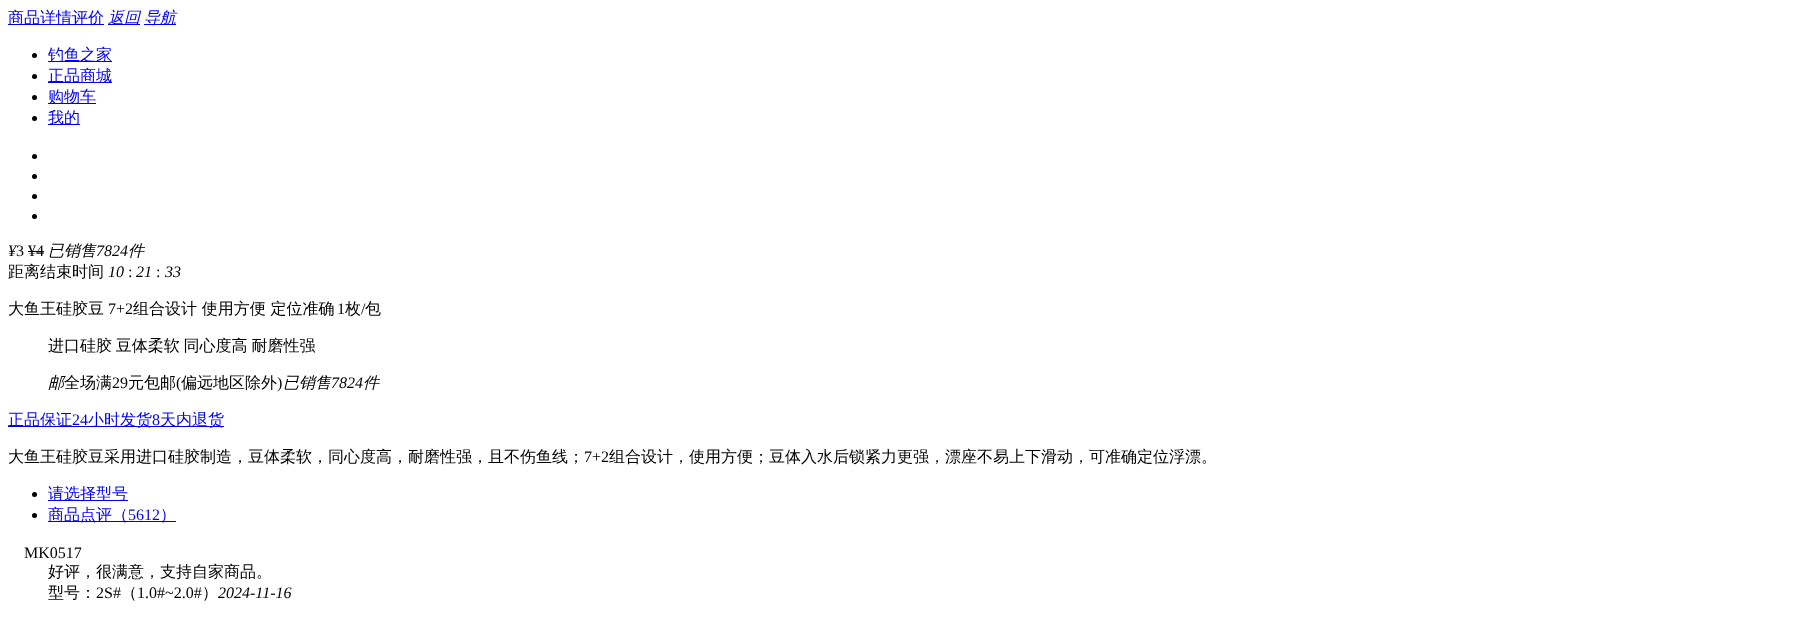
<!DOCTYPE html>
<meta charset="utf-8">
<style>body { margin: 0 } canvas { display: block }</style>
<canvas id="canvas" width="1813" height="630"></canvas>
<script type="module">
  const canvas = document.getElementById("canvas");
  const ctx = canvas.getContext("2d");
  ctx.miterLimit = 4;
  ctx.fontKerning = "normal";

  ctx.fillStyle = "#ffffff";
  ctx.fillRect(0, 0, 1813, 630);
  ctx.fillStyle = "#0000ee";
  ctx.fillRect(8, 24, 96, 1);
  ctx.font = "500 16px WenQuanYi Zen Hei";
  ctx.fillText("商品详情评价", 8, 23);
  ctx.fillRect(108, 24, 32, 1);
  ctx.font = "italic 500 16px WenQuanYi Zen Hei";
  ctx.fillText("返回", 108, 23);
  ctx.fillRect(144, 24, 32, 1);
  ctx.fillText("导航", 144, 23);
  ctx.fillStyle = "#000000";
  ctx.beginPath();
  ctx.arc(34.5, 55.5, 2.5, 0, Math.PI * 2);
  ctx.fill();
  ctx.fillStyle = "#0000ee";
  ctx.fillRect(48, 61, 64, 1);
  ctx.font = "500 16px WenQuanYi Zen Hei";
  ctx.fillText("钓鱼之家", 48, 60);
  ctx.fillStyle = "#000000";
  ctx.beginPath();
  ctx.arc(34.5, 76.5, 2.5, 0, Math.PI * 2);
  ctx.fill();
  ctx.fillStyle = "#0000ee";
  ctx.fillRect(48, 82, 64, 1);
  ctx.fillText("正品商城", 48, 81);
  ctx.fillStyle = "#000000";
  ctx.beginPath();
  ctx.arc(34.5, 97.5, 2.5, 0, Math.PI * 2);
  ctx.fill();
  ctx.fillStyle = "#0000ee";
  ctx.fillRect(48, 103, 48, 1);
  ctx.fillText("购物车", 48, 102);
  ctx.fillStyle = "#000000";
  ctx.beginPath();
  ctx.arc(34.5, 118.5, 2.5, 0, Math.PI * 2);
  ctx.fill();
  ctx.fillStyle = "#0000ee";
  ctx.fillRect(48, 124, 32, 1);
  ctx.fillText("我的", 48, 123);
  ctx.fillStyle = "#000000";
  ctx.beginPath();
  ctx.arc(34.5, 156.5, 2.5, 0, Math.PI * 2);
  ctx.fill();
  ctx.beginPath();
  ctx.arc(34.5, 176.5, 2.5, 0, Math.PI * 2);
  ctx.fill();
  ctx.beginPath();
  ctx.arc(34.5, 196.5, 2.5, 0, Math.PI * 2);
  ctx.fill();
  ctx.beginPath();
  ctx.arc(34.5, 216.5, 2.5, 0, Math.PI * 2);
  ctx.fill();
  ctx.font = "italic 16px Liberation Serif";
  ctx.fillText("¥", 8, 256);
  ctx.font = "16px Liberation Serif";
  ctx.fillText("3 ¥4", 16, 256);
  ctx.font = "italic 500 16px WenQuanYi Zen Hei";
  ctx.fillText("已销售", 48, 256);
  ctx.font = "italic 16px Liberation Serif";
  ctx.fillText("7824", 96, 256);
  ctx.font = "italic 500 16px WenQuanYi Zen Hei";
  ctx.fillText("件", 128, 256);
  ctx.fillRect(28, 251, 16, 1);
  ctx.font = "500 16px WenQuanYi Zen Hei";
  ctx.fillText("距离结束时间", 8, 277);
  ctx.font = "italic 16px Liberation Serif";
  ctx.fillText("10", 108, 277);
  ctx.font = "16px Liberation Serif";
  ctx.fillText(":", 128, 277);
  ctx.font = "italic 16px Liberation Serif";
  ctx.fillText("21", 136, 277);
  ctx.font = "16px Liberation Serif";
  ctx.fillText(":", 156, 277);
  ctx.font = "italic 16px Liberation Serif";
  ctx.fillText("33", 165, 277);
  ctx.font = "500 16px WenQuanYi Zen Hei";
  ctx.fillText("大鱼王硅胶豆", 8, 314);
  ctx.font = "16px Liberation Serif";
  ctx.fillText("7+2", 108, 314);
  ctx.font = "500 16px WenQuanYi Zen Hei";
  ctx.fillText("组合设计 使用方便 定位准确", 133, 314);
  ctx.font = "16px Liberation Serif";
  ctx.fillText("1", 337, 314);
  ctx.font = "500 16px WenQuanYi Zen Hei";
  ctx.fillText("枚", 345, 314);
  ctx.font = "16px Liberation Serif";
  ctx.fillText("/", 361, 314);
  ctx.font = "500 16px WenQuanYi Zen Hei";
  ctx.fillText("包", 365, 314);
  ctx.wordSpacing = "-1px";
  ctx.fillText("进口硅胶 豆体柔软 同心度高 耐磨性强", 48, 351);
  ctx.wordSpacing = "0px";
  ctx.font = "italic 500 16px WenQuanYi Zen Hei";
  ctx.fillText("邮", 48, 388);
  ctx.font = "500 16px WenQuanYi Zen Hei";
  ctx.fillText("全场满", 64, 388);
  ctx.font = "16px Liberation Serif";
  ctx.fillText("29", 112, 388);
  ctx.font = "500 16px WenQuanYi Zen Hei";
  ctx.fillText("元包邮", 128, 388);
  ctx.font = "16px Liberation Serif";
  ctx.fillText("(", 176, 388);
  ctx.font = "500 16px WenQuanYi Zen Hei";
  ctx.fillText("偏远地区除外", 181, 388);
  ctx.font = "16px Liberation Serif";
  ctx.fillText(")", 277, 388);
  ctx.font = "italic 500 16px WenQuanYi Zen Hei";
  ctx.fillText("已销售", 283, 388);
  ctx.font = "italic 16px Liberation Serif";
  ctx.fillText("7824", 331, 388);
  ctx.font = "italic 500 16px WenQuanYi Zen Hei";
  ctx.fillText("件", 363, 388);
  ctx.fillStyle = "#0000ee";
  ctx.fillRect(8, 426, 216, 1);
  ctx.font = "500 16px WenQuanYi Zen Hei";
  ctx.fillText("正品保证", 8, 425);
  ctx.font = "16px Liberation Serif";
  ctx.fillText("24", 72, 425);
  ctx.font = "500 16px WenQuanYi Zen Hei";
  ctx.fillText("小时发货", 88, 425);
  ctx.font = "16px Liberation Serif";
  ctx.fillText("8", 152, 425);
  ctx.font = "500 16px WenQuanYi Zen Hei";
  ctx.fillText("天内退货", 160, 425);
  ctx.fillStyle = "#000000";
  ctx.fillText("大鱼王硅胶豆采用进口硅胶制造，豆体柔软，同心度高，耐磨性强，且不伤鱼线；", 8, 462);
  ctx.font = "16px Liberation Serif";
  ctx.fillText("7+2", 584, 462);
  ctx.font = "500 16px WenQuanYi Zen Hei";
  ctx.fillText("组合设计，使用方便；豆体入水后锁紧力更强，漂座不易上下滑动，可准确定位浮漂。", 609, 462);
  ctx.beginPath();
  ctx.arc(34.5, 494.5, 2.5, 0, Math.PI * 2);
  ctx.fill();
  ctx.fillStyle = "#0000ee";
  ctx.fillRect(48, 500, 80, 1);
  ctx.fillText("请选择型号", 48, 499);
  ctx.fillStyle = "#000000";
  ctx.beginPath();
  ctx.arc(34.5, 515.5, 2.5, 0, Math.PI * 2);
  ctx.fill();
  ctx.fillStyle = "#0000ee";
  ctx.fillRect(48, 521, 128, 1);
  ctx.fillText("商品点评（", 48, 520);
  ctx.font = "16px Liberation Serif";
  ctx.fillText("5612", 128, 520);
  ctx.font = "500 16px WenQuanYi Zen Hei";
  ctx.fillText("）", 160, 520);
  ctx.font = "16px Liberation Serif";
  ctx.fillStyle = "#000000";
  ctx.fillText("MK0517", 24, 558);
  ctx.font = "500 16px WenQuanYi Zen Hei";
  ctx.fillText("好评，很满意，支持自家商品。", 48, 577);
  ctx.fillText("型号：", 48, 598);
  ctx.font = "16px Liberation Serif";
  ctx.fillText("2S#", 96, 598);
  ctx.font = "500 16px WenQuanYi Zen Hei";
  ctx.fillText("（", 121, 598);
  ctx.font = "16px Liberation Serif";
  ctx.fillText("1.0#~2.0#", 137, 598);
  ctx.font = "500 16px WenQuanYi Zen Hei";
  ctx.fillText("）", 202, 598);
  ctx.font = "italic 16px Liberation Serif";
  ctx.fillText("2024-11-16", 218, 598);
</script>
